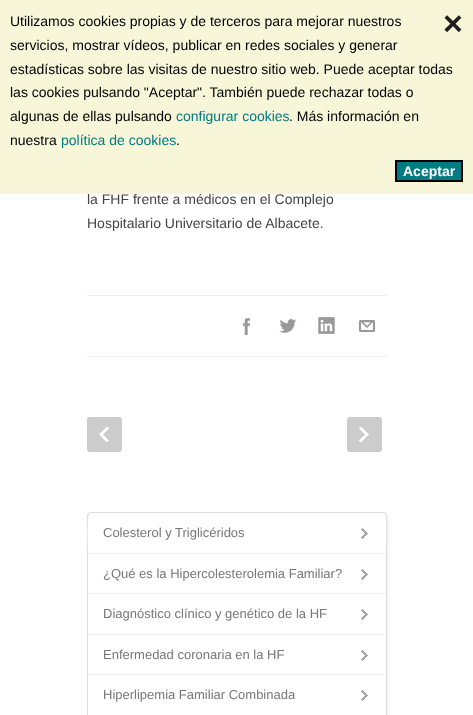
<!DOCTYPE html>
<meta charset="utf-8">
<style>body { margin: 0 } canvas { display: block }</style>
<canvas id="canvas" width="473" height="715"></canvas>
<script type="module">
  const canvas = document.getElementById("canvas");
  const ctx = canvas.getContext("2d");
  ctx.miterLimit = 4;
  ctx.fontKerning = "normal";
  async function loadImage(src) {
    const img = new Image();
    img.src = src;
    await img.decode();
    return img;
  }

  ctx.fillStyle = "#ffffff";
  ctx.fillRect(0, 0, 473, 715);
  ctx.font = "14px Liberation Sans";
  ctx.fillStyle = "#444444";
  ctx.fillText("la FHF frente a médicos en el Complejo", 87, 204);
  ctx.fillStyle = "#f7f6d9";
  ctx.fillRect(0, 0, 473, 194);
  ctx.fillStyle = "#000000";
  ctx.fillText("Utilizamos cookies propias y de terceros para mejorar nuestros", 10, 26);
  ctx.font = "bold 34px Liberation Sans";
  ctx.fillStyle = "#1f1f1f";
  ctx.fillText("×", 443, 35);
  ctx.font = "14px Liberation Sans";
  ctx.fillStyle = "#000000";
  ctx.fillText("servicios, mostrar vídeos, publicar en redes sociales y generar", 10, 50);
  ctx.fillText("estadísticas sobre las visitas de nuestro sitio web. Puede aceptar todas", 10, 74);
  ctx.fillText("las cookies pulsando \"Aceptar\". También puede rechazar todas o", 10, 97);
  ctx.fillText("algunas de ellas pulsando", 10, 121);
  ctx.fillStyle = "#007a85";
  ctx.fillText("configurar cookies", 176, 121);
  ctx.fillStyle = "#000000";
  ctx.fillText(". Más información en", 289, 121);
  ctx.fillText("nuestra", 10, 145);
  ctx.fillStyle = "#007a85";
  ctx.fillText("política de cookies", 61, 145);
  ctx.fillStyle = "#000000";
  ctx.fillText(".", 176, 145);
  ctx.fillStyle = "#007a85";
  ctx.beginPath();
  ctx.rect(396, 161, 66, 20);
  ctx.fill();
  ctx.strokeStyle = "#000000";
  ctx.lineWidth = 2;
  ctx.stroke();
  ctx.font = "bold 14px Liberation Sans";
  ctx.fillStyle = "#ffffff";
  ctx.fillText("Aceptar", 403, 176);
  ctx.font = "14px Liberation Sans";
  ctx.fillStyle = "#444444";
  ctx.fillText("Hospitalario Universitario de Albacete.", 87, 228);
  ctx.fillStyle = "#efefef";
  ctx.fillRect(87, 295, 300, 1);
  ctx.fillRect(87, 356, 300, 1);
  ctx.drawImage(await loadImage("img1.png"), 243, 318, 7, 17);
  ctx.drawImage(await loadImage("img2.png"), 279, 319, 18, 14);
  ctx.drawImage(await loadImage("img3.png"), 318, 317, 17, 17);
  ctx.drawImage(await loadImage("img4.png"), 359, 320, 16, 12);
  ctx.fillStyle = "#cccccc";
  ctx.beginPath();
  ctx.roundRect(87, 417, 35, 35, 3);
  ctx.fill();
  ctx.drawImage(await loadImage("img5.png"), 99, 427, 10, 15);
  ctx.beginPath();
  ctx.roundRect(347, 417, 35, 35, 3);
  ctx.fill();
  ctx.drawImage(await loadImage("img6.png"), 359, 427, 10, 15);
  ctx.fillStyle = "rgba(0, 0, 0, 0.08)";
  ctx.filter = "blur(1px)";
  ctx.beginPath();
  ctx.roundRect(88, 513, 300, 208, 3);
  ctx.fill();
  ctx.filter = "none";
  ctx.fillStyle = "#ffffff";
  ctx.beginPath();
  ctx.roundRect(87, 512, 300, 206, 3);
  ctx.fill();
  ctx.drawImage(await loadImage("img7.png"), 361, 528, 7, 11);
  ctx.fillStyle = "#dddddd";
  ctx.beginPath();
  ctx.moveTo(90, 512);
  ctx.lineTo(88, 513);
  ctx.lineTo(89, 514);
  ctx.lineTo(90, 513);
  ctx.lineTo(384, 513);
  ctx.lineTo(385, 514);
  ctx.lineTo(386, 513);
  ctx.lineTo(384, 512);
  ctx.closePath();
  ctx.fill();
  ctx.beginPath();
  ctx.moveTo(387, 554);
  ctx.bezierCurveTo(387, 549, 388, 515, 386, 513);
  ctx.lineTo(385, 514);
  ctx.bezierCurveTo(387, 515, 386, 548, 386, 553);
  ctx.closePath();
  ctx.fill();
  ctx.beginPath();
  ctx.moveTo(87, 554);
  ctx.lineTo(88, 553);
  ctx.bezierCurveTo(88, 548, 87, 515, 89, 514);
  ctx.lineTo(88, 513);
  ctx.lineTo(87, 515);
  ctx.closePath();
  ctx.fill();
  ctx.font = "13px Liberation Sans";
  ctx.fillStyle = "#777777";
  ctx.fillText("Colesterol y Triglicéridos", 103, 537);
  ctx.drawImage(await loadImage("img7.png"), 361, 569, 7, 11);
  ctx.fillStyle = "#efefef";
  ctx.fillRect(87, 553, 300, 1);
  ctx.fillStyle = "#dddddd";
  ctx.fillRect(386, 553, 1, 41);
  ctx.fillRect(87, 553, 1, 41);
  ctx.fillStyle = "#777777";
  ctx.fillText("¿Qué es la Hipercolesterolemia Familiar?", 103, 578);
  ctx.drawImage(await loadImage("img7.png"), 361, 609, 7, 11);
  ctx.fillStyle = "#efefef";
  ctx.fillRect(87, 593, 300, 1);
  ctx.fillStyle = "#dddddd";
  ctx.fillRect(386, 593, 1, 42);
  ctx.fillRect(87, 593, 1, 42);
  ctx.fillStyle = "#777777";
  ctx.fillText("Diagnóstico clínico y genético de la HF", 103, 618);
  ctx.drawImage(await loadImage("img7.png"), 361, 650, 7, 11);
  ctx.fillStyle = "#efefef";
  ctx.fillRect(87, 634, 300, 1);
  ctx.fillStyle = "#dddddd";
  ctx.fillRect(386, 634, 1, 41);
  ctx.fillRect(87, 634, 1, 41);
  ctx.fillStyle = "#777777";
  ctx.fillText("Enfermedad coronaria en la HF", 103, 659);
  ctx.drawImage(await loadImage("img7.png"), 361, 690, 7, 11);
  ctx.fillStyle = "#efefef";
  ctx.fillRect(87, 674, 300, 1);
  ctx.fillStyle = "#dddddd";
  ctx.fillRect(386, 674, 1, 41);
  ctx.fillRect(87, 674, 1, 41);
  ctx.fillStyle = "#777777";
  ctx.fillText("Hiperlipemia Familiar Combinada", 103, 699);
</script>
